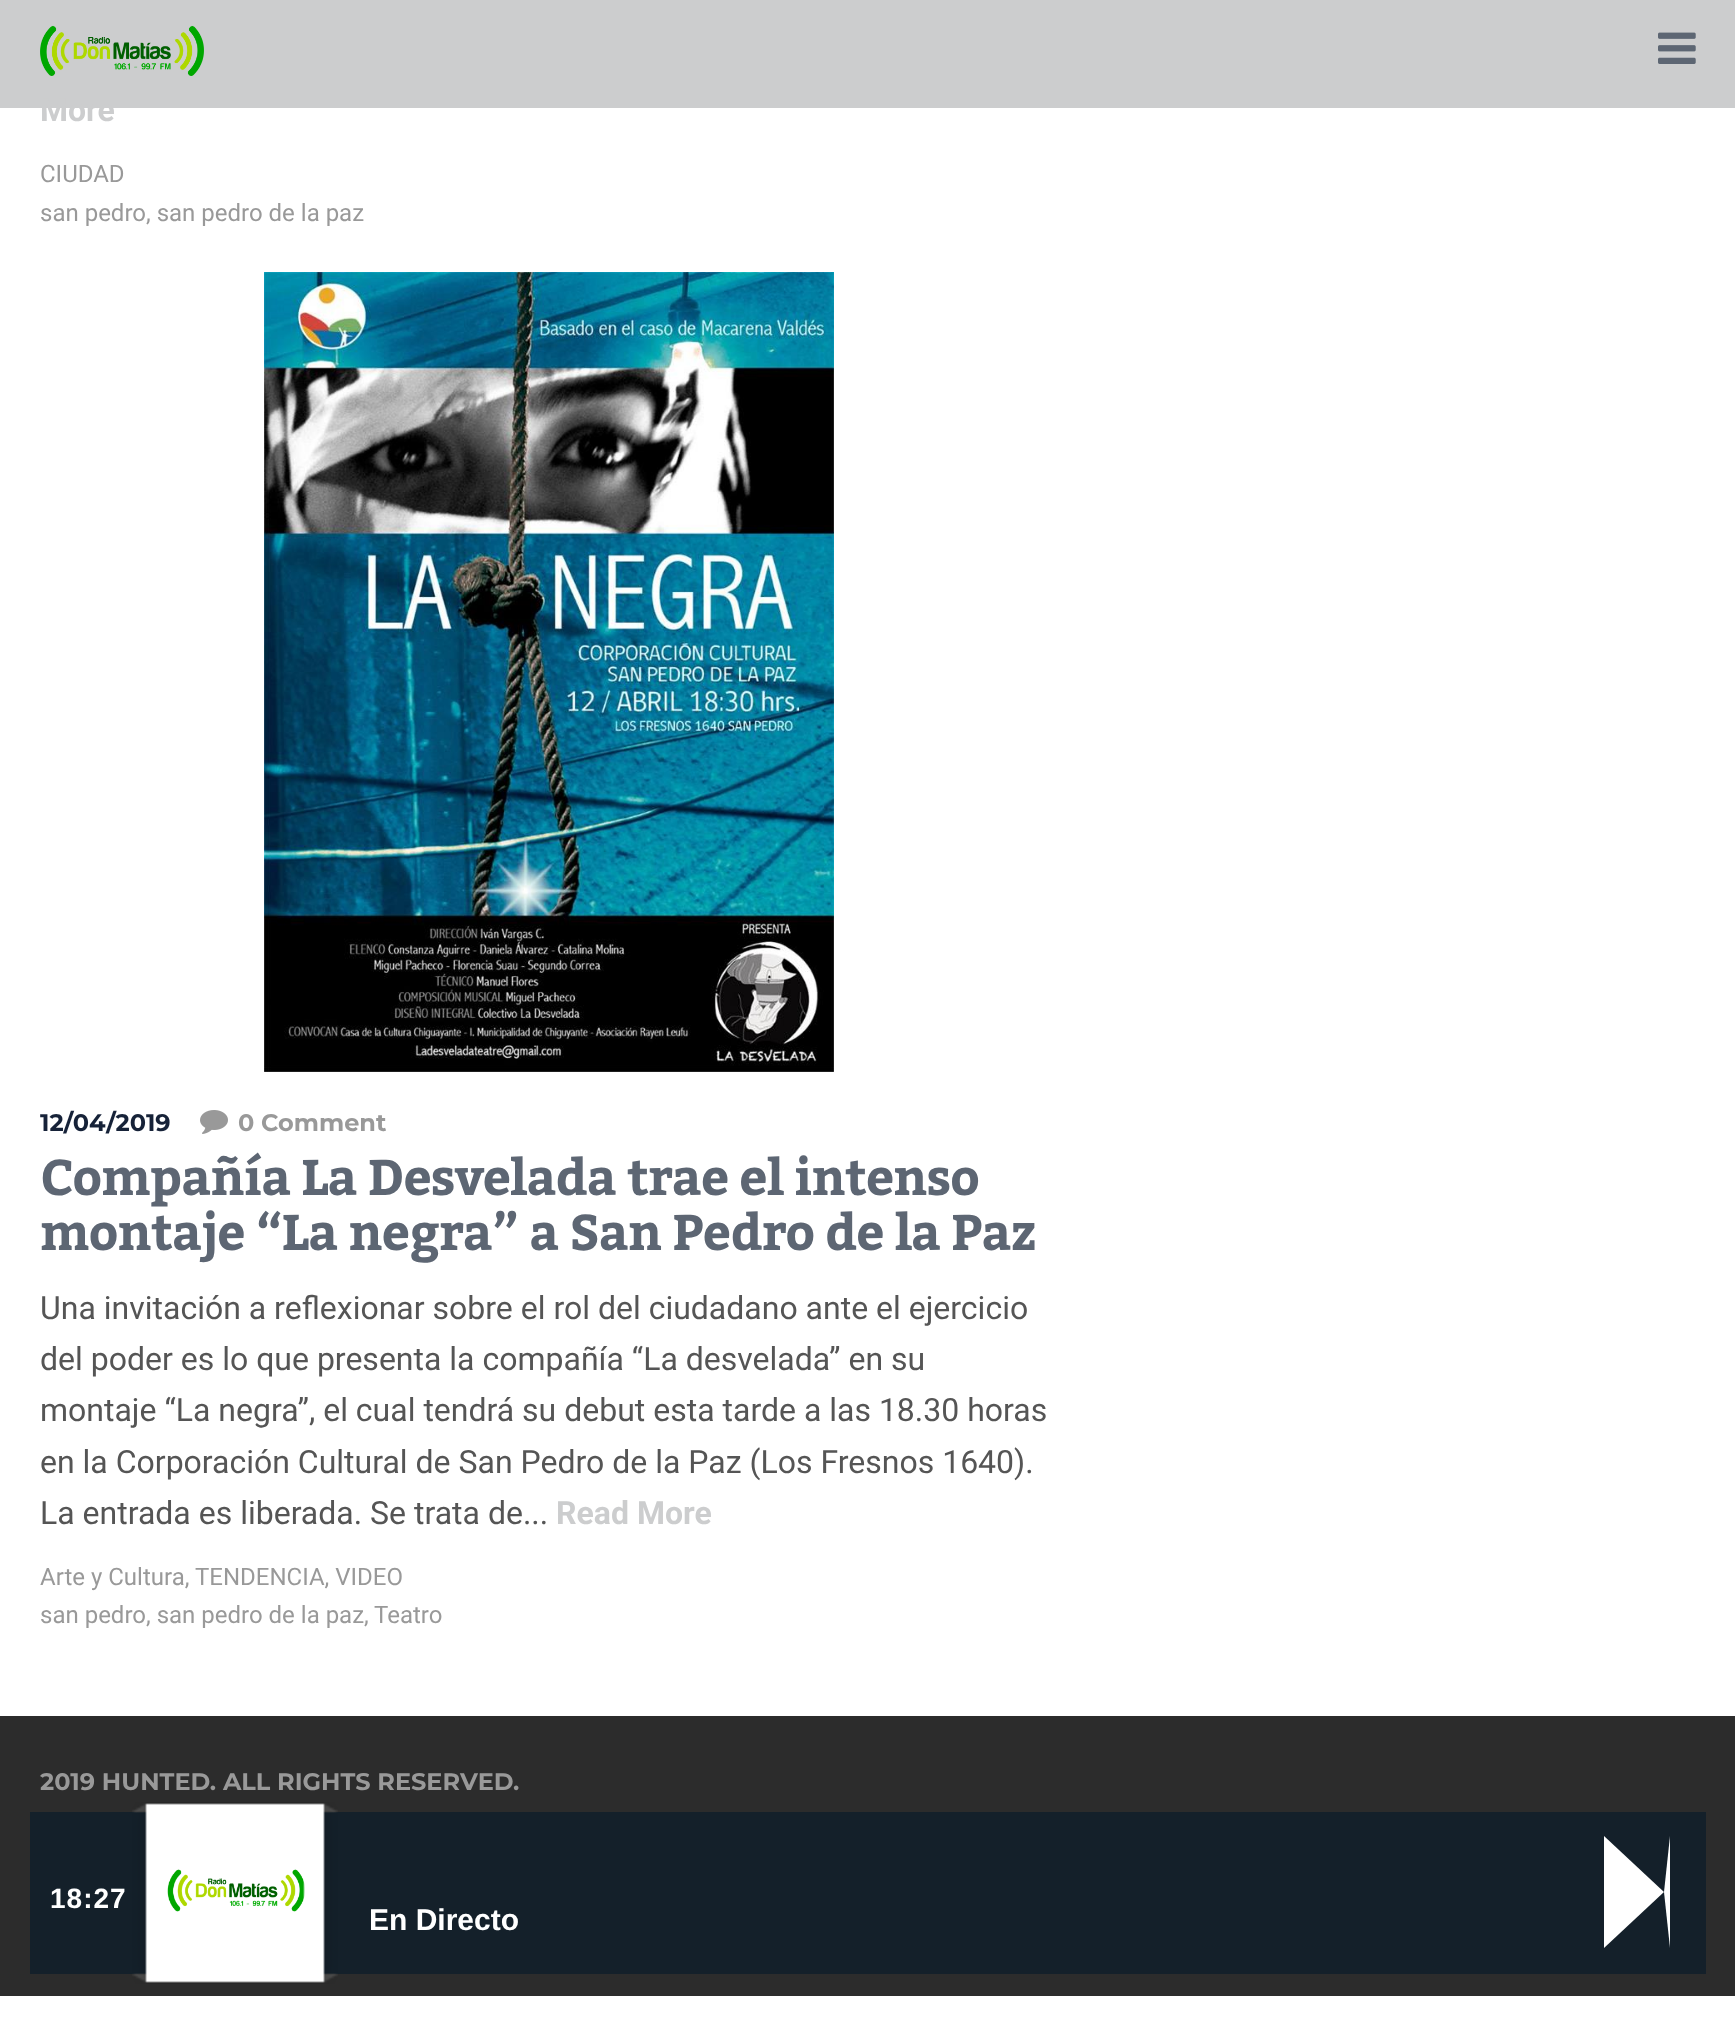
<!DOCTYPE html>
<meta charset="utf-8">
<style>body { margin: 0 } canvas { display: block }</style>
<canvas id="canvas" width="1735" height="2032"></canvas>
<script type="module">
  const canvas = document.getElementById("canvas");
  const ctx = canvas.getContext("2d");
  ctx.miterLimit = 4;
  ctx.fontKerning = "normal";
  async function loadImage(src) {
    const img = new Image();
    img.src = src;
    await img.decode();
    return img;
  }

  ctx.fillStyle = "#ffffff";
  ctx.fillRect(0, 0, 1735, 2032);
  ctx.fillStyle = "#cccdce";
  ctx.fillRect(0, 0, 1735, 108);
  ctx.drawImage(await loadImage("img1.png"), 40, 25, 164, 51);
  ctx.drawImage(await loadImage("img2.png"), 1658, 32, 38, 32);
  ctx.font = "bold 32px Roboto";
  ctx.fillText("More", 40, 121);
  ctx.font = "24px Roboto";
  ctx.fillStyle = "#999999";
  ctx.fillText("CIUDAD", 40, 182);
  ctx.fillText("san pedro, san pedro de la paz", 40, 221);
  ctx.drawImage(await loadImage("img3.png"), 264, 272, 570, 800);
  ctx.font = "bold 24px Montserrat";
  ctx.fillStyle = "#162238";
  ctx.fillText("12/04/2019", 40, 1131);
  ctx.drawImage(await loadImage("img4.png"), 200, 1110, 28, 24);
  ctx.fillStyle = "#999999";
  ctx.fillText("0 Comment", 238, 1131);
  ctx.letterSpacing = "-0.8px";
  ctx.font = "bold 50px Kadwa";
  ctx.fillStyle = "#5d6673";
  ctx.fillText("Compañía La Desvelada trae el intenso", 40, 1195);
  ctx.fillText("montaje “La negra” a San Pedro de la Paz", 40, 1250);
  ctx.letterSpacing = "0px";
  ctx.font = "32px Roboto";
  ctx.fillStyle = "#555555";
  ctx.fillText("Una invitación a reflexionar sobre el rol del ciudadano ante el ejercicio", 40, 1319);
  ctx.fillText("del poder es lo que presenta la compañía “La desvelada” en su", 40, 1370);
  ctx.fillText("montaje “La negra”, el cual tendrá su debut esta tarde a las 18.30 horas", 40, 1421);
  ctx.fillText("en la Corporación Cultural de San Pedro de la Paz (Los Fresnos 1640).", 40, 1473);
  ctx.fillText("La entrada es liberada. Se trata de...", 40, 1524);
  ctx.font = "bold 32px Roboto";
  ctx.fillStyle = "#cccdce";
  ctx.fillText("Read More", 556, 1524);
  ctx.font = "24px Roboto";
  ctx.fillStyle = "#999999";
  ctx.fillText("Arte y Cultura,", 40, 1585);
  ctx.fillText("TENDENCIA, VIDEO", 195, 1585);
  ctx.fillText("san pedro, san pedro de la paz,", 40, 1623);
  ctx.fillText("Teatro", 374, 1623);
  ctx.fillStyle = "#2c2c2c";
  ctx.fillRect(0, 1716, 1735, 280);
  ctx.font = "bold 24px Montserrat";
  ctx.fillStyle = "#999999";
  ctx.fillText("2019 HUNTED. ALL RIGHTS RESERVED.", 40, 1790);
  ctx.fillStyle = "#14202a";
  ctx.fillRect(30, 1812, 1676, 162);
  ctx.drawImage(await loadImage("img6.png"), 165, 1823, 140, 140);
  ctx.drawImage(await loadImage("img5.png"), 132, 1802, 206, 182);
  ctx.fillStyle = "#ffffff";
  ctx.beginPath();
  ctx.moveTo(1670, 1836);
  ctx.lineTo(1670, 1948);
  ctx.lineTo(1664, 1892);
  ctx.closePath();
  ctx.fill();
  ctx.beginPath();
  ctx.moveTo(1604, 1948);
  ctx.lineTo(1604, 1836);
  ctx.lineTo(1664, 1892);
  ctx.closePath();
  ctx.fill();
  ctx.letterSpacing = "1px";
  ctx.font = "bold 28px Liberation Sans";
  ctx.fillText("18:27", 50, 1908);
  ctx.letterSpacing = "0px";
  ctx.font = "bold 30px Liberation Sans";
  ctx.fillText("En Directo", 369, 1930);
</script>
